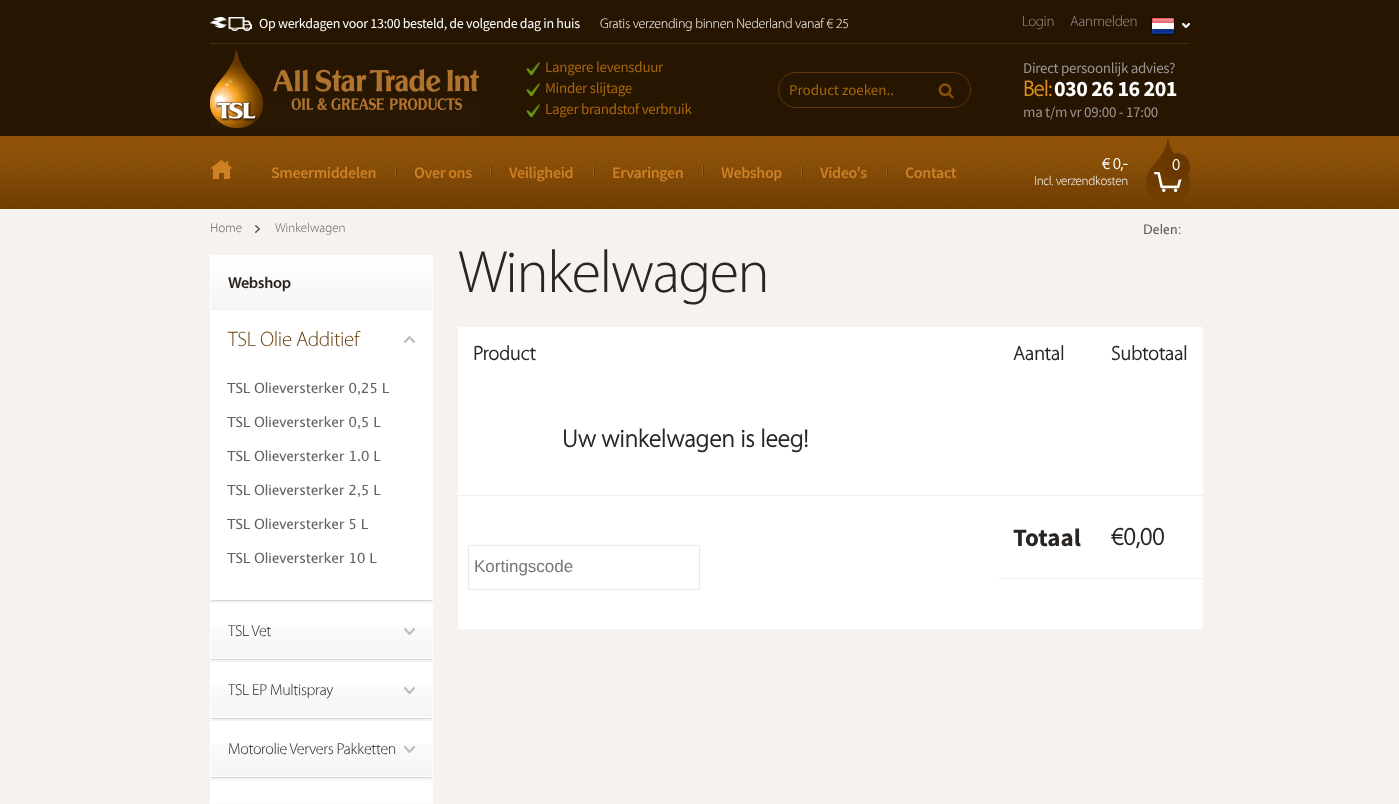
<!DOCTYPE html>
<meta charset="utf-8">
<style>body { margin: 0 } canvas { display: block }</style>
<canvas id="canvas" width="1399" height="804"></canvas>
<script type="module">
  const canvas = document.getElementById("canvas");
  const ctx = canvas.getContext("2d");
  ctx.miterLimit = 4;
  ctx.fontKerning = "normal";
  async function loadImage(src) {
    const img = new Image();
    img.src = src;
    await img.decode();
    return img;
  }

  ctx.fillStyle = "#f5f2ef";
  ctx.fillRect(0, 0, 1399, 804);
  ctx.drawImage(await loadImage("img1.png"), 0, 0, 1399, 209);
  ctx.letterSpacing = "-0.3px";
  ctx.font = "300 15px Myriad";
  ctx.fillStyle = "#9a9695";
  ctx.fillText("Login", 1022, 26);
  ctx.fillText("Aanmelden", 1070, 26);
  ctx.drawImage(await loadImage("img2.png"), 210, 160, 23, 19);
  ctx.fillStyle = "#824c0c";
  ctx.fillRect(252, 166, 3, 12);
  ctx.letterSpacing = "-0.35px";
  ctx.font = "600 16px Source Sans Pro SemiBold";
  ctx.fillStyle = "#ce8027";
  ctx.fillText("Smeermiddelen", 271, 178);
  ctx.drawImage(await loadImage("img3.png"), 395, 166, 2, 12);
  ctx.fillText("Over ons", 414, 178);
  ctx.drawImage(await loadImage("img3.png"), 490, 166, 2, 12);
  ctx.fillText("Veiligheid", 509, 178);
  ctx.drawImage(await loadImage("img3.png"), 593, 166, 2, 12);
  ctx.fillText("Ervaringen", 612, 178);
  ctx.drawImage(await loadImage("img3.png"), 702, 166, 2, 12);
  ctx.fillText("Webshop", 721, 178);
  ctx.drawImage(await loadImage("img3.png"), 801, 166, 2, 12);
  ctx.fillText("Video's", 820, 178);
  ctx.drawImage(await loadImage("img3.png"), 886, 166, 2, 12);
  ctx.fillText("Contact", 905, 178);
  ctx.drawImage(await loadImage("img4.png"), 210, 17, 42, 14);
  ctx.fillStyle = "#3f2e18";
  ctx.fillRect(210, 43, 979, 1);
  ctx.letterSpacing = "-0.3px";
  ctx.font = "14px Source Sans Pro";
  ctx.fillStyle = "#ffffff";
  ctx.fillText("Op werkdagen voor 13:00 besteld, de volgende dag in huis", 259, 28);
  ctx.font = "300 14px Myriad";
  ctx.fillText("Gratis verzending binnen Nederland vanaf € 25", 600, 28);
  ctx.drawImage(await loadImage("img5.png"), 1182, 23, 8, 5);
  ctx.drawImage(await loadImage("img6.png"), 1151, 17, 24, 19);
  ctx.drawImage(await loadImage("img7.png"), 210, 50, 270, 78);
  ctx.drawImage(await loadImage("img8.png"), 526, 62, 14, 14);
  ctx.font = "15px Source Sans Pro";
  ctx.fillStyle = "#a7660b";
  ctx.fillText("Langere levensduur", 545, 72);
  ctx.drawImage(await loadImage("img8.png"), 526, 83, 14, 14);
  ctx.fillText("Minder slijtage", 545, 93);
  ctx.drawImage(await loadImage("img8.png"), 526, 104, 14, 14);
  ctx.fillText("Lager brandstof verbruik", 545, 114);
  ctx.beginPath();
  ctx.roundRect(778.5, 72.5, 192, 35, 17.5);
  ctx.strokeStyle = "#5f3905";
  ctx.stroke();
  ctx.letterSpacing = "0px";
  ctx.fillText("Product zoeken..", 789, 95);
  ctx.drawImage(await loadImage("img9.png"), 938, 83, 16, 16);
  ctx.letterSpacing = "-0.3px";
  ctx.fillStyle = "#9a9695";
  ctx.fillText("Direct persoonlijk advies?", 1023, 73);
  ctx.letterSpacing = "-0.5px";
  ctx.font = "bold 22px Myriad";
  ctx.fillStyle = "#e29319";
  ctx.fillText("Bel:", 1023, 96);
  ctx.font = "bold 22px Source Sans Pro";
  ctx.fillStyle = "#ffffff";
  ctx.fillText("030 26 16 201", 1054, 96);
  ctx.letterSpacing = "-0.3px";
  ctx.font = "15px Source Sans Pro";
  ctx.fillStyle = "#9a9695";
  ctx.fillText("ma t/m vr 09:00 - 17:00", 1023, 117);
  ctx.drawImage(await loadImage("img10.png"), 1146, 139, 44, 64);
  ctx.font = "bold 16px Myriad";
  ctx.fillStyle = "#ffffff";
  ctx.fillText("€ 0,-", 1102, 169);
  ctx.drawImage(await loadImage("img11.png"), 1165, 153, 25, 27);
  ctx.fillText("0", 1172, 170);
  ctx.font = "300 13px Myriad";
  ctx.fillText("Incl. verzendkosten", 1034, 185);
  ctx.letterSpacing = "0px";
  ctx.fillStyle = "#626262";
  ctx.fillText("Home", 210, 232);
  ctx.drawImage(await loadImage("img12.png"), 255, 225, 5, 8);
  ctx.fillText("Winkelwagen", 275, 232);
  ctx.letterSpacing = "-0.3px";
  ctx.font = "13px Lucida Grande";
  ctx.fillText("Delen:", 1143, 234);
  ctx.drawImage(await loadImage("img13.png"), 211, 255, 221, 53);
  ctx.fillStyle = "#ffffff";
  ctx.fillRect(432, 255, 1, 56);
  ctx.fillRect(210, 310, 223, 1);
  ctx.fillRect(210, 255, 1, 56);
  ctx.letterSpacing = "-0.35px";
  ctx.font = "600 16px Myriad";
  ctx.fillStyle = "#282523";
  ctx.fillText("Webshop", 228, 288);
  ctx.fillStyle = "#ffffff";
  ctx.fillRect(210, 311, 223, 289);
  ctx.drawImage(await loadImage("img14.png"), 210, 600, 223, 1);
  ctx.drawImage(await loadImage("img15.png"), 404, 336, 11, 7);
  ctx.font = "300 21px Myriad";
  ctx.fillStyle = "#683e0c";
  ctx.fillText("TSL Olie Additief", 228, 346);
  ctx.font = "14px Lucida Grande";
  ctx.fillStyle = "#626262";
  ctx.fillText("TSL Olieversterker 0,25 L", 227, 393);
  ctx.fillText("TSL Olieversterker 0,5 L", 227, 427);
  ctx.fillText("TSL Olieversterker 1.0 L", 227, 461);
  ctx.fillText("TSL Olieversterker 2,5 L", 227, 495);
  ctx.fillText("TSL Olieversterker 5 L", 227, 529);
  ctx.fillText("TSL Olieversterker 10 L", 227, 563);
  ctx.fillStyle = "#ffffff";
  ctx.fillRect(211, 603, 221, 23);
  ctx.drawImage(await loadImage("img14.png"), 210, 659, 223, 1);
  ctx.drawImage(await loadImage("img16.png"), 211, 626, 221, 32);
  ctx.fillRect(432, 603, 1, 56);
  ctx.fillRect(210, 658, 223, 1);
  ctx.fillRect(210, 603, 1, 56);
  ctx.drawImage(await loadImage("img17.png"), 404, 628, 11, 7);
  ctx.font = "300 16px Myriad";
  ctx.fillStyle = "#282523";
  ctx.fillText("TSL Vet", 228, 636);
  ctx.fillStyle = "#ffffff";
  ctx.fillRect(211, 662, 221, 23);
  ctx.drawImage(await loadImage("img14.png"), 210, 718, 223, 1);
  ctx.drawImage(await loadImage("img16.png"), 211, 685, 221, 32);
  ctx.fillRect(432, 662, 1, 56);
  ctx.fillRect(210, 717, 223, 1);
  ctx.fillRect(210, 662, 1, 56);
  ctx.drawImage(await loadImage("img17.png"), 404, 687, 11, 7);
  ctx.fillStyle = "#282523";
  ctx.fillText("TSL EP Multispray", 228, 695);
  ctx.fillStyle = "#ffffff";
  ctx.fillRect(211, 721, 221, 23);
  ctx.drawImage(await loadImage("img14.png"), 210, 777, 223, 1);
  ctx.drawImage(await loadImage("img16.png"), 211, 744, 221, 32);
  ctx.fillRect(432, 721, 1, 56);
  ctx.fillRect(210, 776, 223, 1);
  ctx.fillRect(210, 721, 1, 56);
  ctx.drawImage(await loadImage("img17.png"), 404, 746, 11, 7);
  ctx.fillStyle = "#282523";
  ctx.fillText("Motorolie Ververs Pakketten", 228, 754);
  ctx.fillStyle = "#ffffff";
  ctx.fillRect(211, 780, 221, 23);
  ctx.fillStyle = "#fcfbfa";
  ctx.fillRect(210, 803, 223, 1);
  ctx.fillStyle = "#ffffff";
  ctx.fillRect(432, 780, 1, 24);
  ctx.fillRect(210, 780, 1, 24);
  ctx.letterSpacing = "-1.4px";
  ctx.font = "300 60px Myriad";
  ctx.fillStyle = "#282523";
  ctx.fillText("Winkelwagen", 458, 292);
  ctx.fillStyle = "#ffffff";
  ctx.fillRect(458, 327, 745, 302);
  ctx.letterSpacing = "0px";
  ctx.font = "bold 20px Myriad";
  ctx.fillStyle = "#282523";
  ctx.fillText("Product", 473, 360);
  ctx.fillText("Aantal", 1013, 360);
  ctx.fillText("Subtotaal", 1111, 360);
  ctx.font = "bold 25px Myriad";
  ctx.fillText("Uw winkelwagen is leeg!", 562, 447);
  ctx.fillStyle = "#eeeeee";
  ctx.fillRect(458, 495, 745, 1);
  ctx.fillRect(998, 578, 205, 1);
  ctx.font = "bold 25px Source Sans Pro";
  ctx.fillStyle = "#282523";
  ctx.fillText("Totaal", 1013, 546);
  ctx.font = "bold 25px Myriad";
  ctx.fillText("€0,00", 1111, 545);
  ctx.strokeStyle = "#eaeaea";
  ctx.strokeRect(468.5, 545.5, 231, 44);
  ctx.font = "17px Liberation Sans";
  ctx.fillStyle = "#757575";
  ctx.fillText("Kortingscode", 474, 572);
</script>
